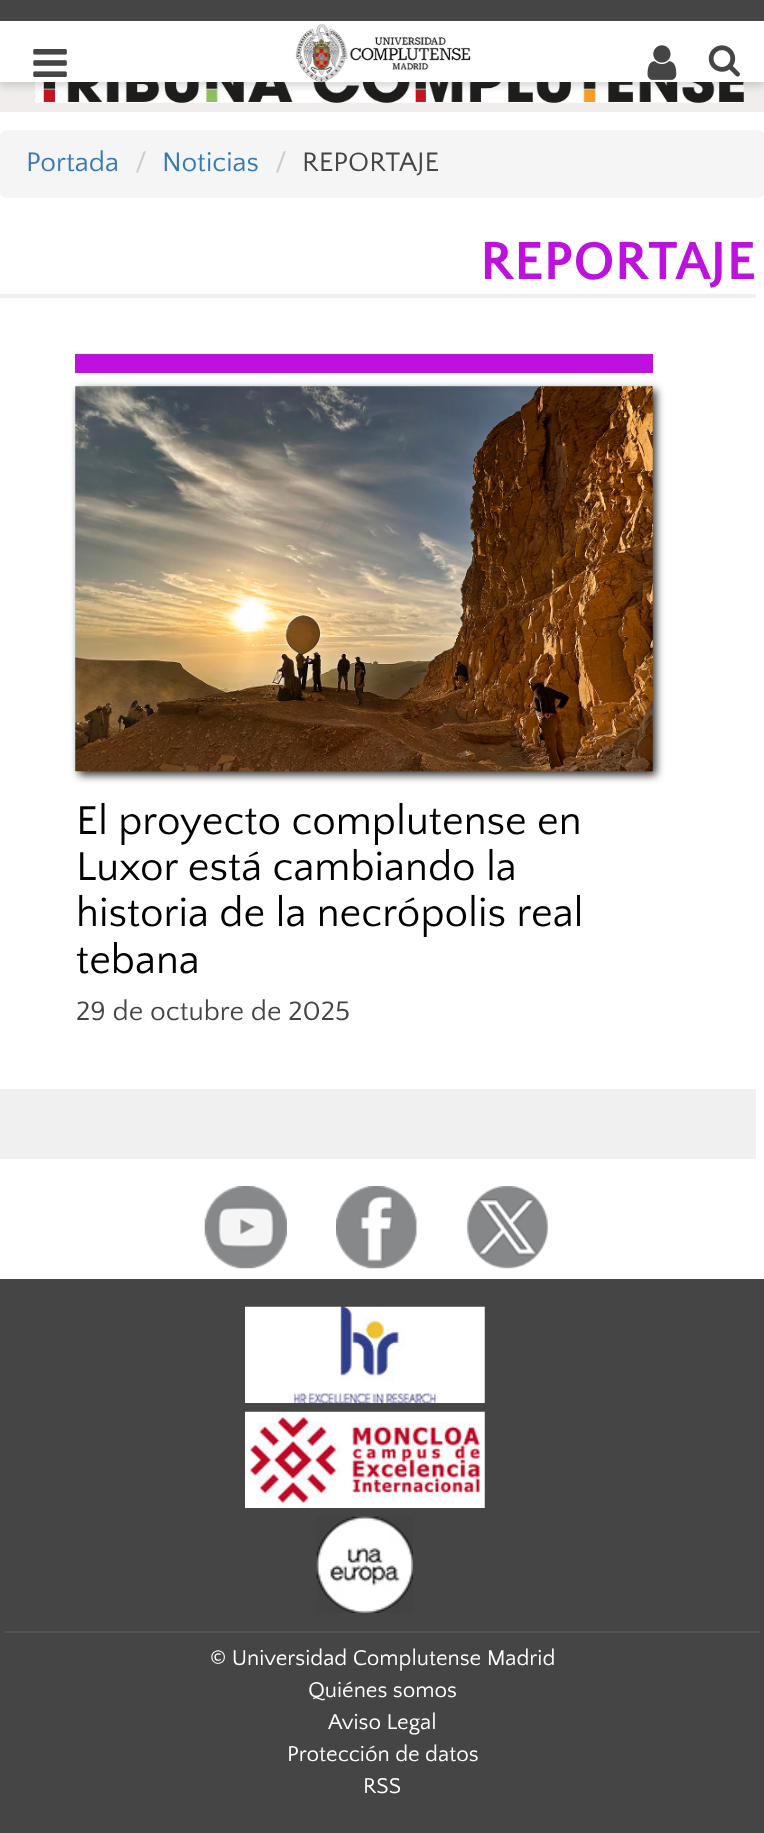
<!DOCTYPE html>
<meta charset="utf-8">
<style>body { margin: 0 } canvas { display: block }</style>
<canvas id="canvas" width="764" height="1833"></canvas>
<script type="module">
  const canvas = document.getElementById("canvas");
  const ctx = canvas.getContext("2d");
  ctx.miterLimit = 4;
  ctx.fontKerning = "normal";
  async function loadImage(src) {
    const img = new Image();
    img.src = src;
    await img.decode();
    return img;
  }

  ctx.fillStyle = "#ffffff";
  ctx.fillRect(0, 0, 764, 1833);
  ctx.fillStyle = "#f1eded";
  ctx.fillRect(0, 82, 764, 30);
  ctx.drawImage(await loadImage("img4.png"), 35, 82, 709, 21);
  ctx.fillStyle = "rgba(50, 50, 50, 0.2)";
  ctx.filter = "blur(4.5px)";
  ctx.beginPath();
  ctx.rect(0, 25, 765, 61);
  ctx.fill();
  ctx.filter = "none";
  ctx.fillStyle = "#454545";
  ctx.fillRect(0, 0, 764, 21);
  ctx.fillStyle = "#ffffff";
  ctx.fillRect(0, 21, 764, 61);
  ctx.drawImage(await loadImage("img1.png"), 647, 45, 30, 35);
  ctx.drawImage(await loadImage("img2.png"), 708, 45, 32, 32);
  ctx.drawImage(await loadImage("img3.png"), 295, 24, 176, 59);
  ctx.fillStyle = "#f5f5f5";
  ctx.beginPath();
  ctx.roundRect(0, 130, 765, 68, 7);
  ctx.fill();
  ctx.font = "28px Quattrocento Sans";
  ctx.fillStyle = "#337ab7";
  ctx.fillText("Portada", 26, 171);
  ctx.fillStyle = "#cccccc";
  ctx.fillText("/", 135, 171);
  ctx.fillStyle = "#337ab7";
  ctx.fillText("Noticias", 162, 171);
  ctx.fillStyle = "#cccccc";
  ctx.fillText("/", 275, 171);
  ctx.fillStyle = "#454545";
  ctx.fillText("REPORTAJE", 302, 171);
  ctx.fillStyle = "#efefef";
  ctx.fillRect(0, 294, 756, 4);
  ctx.font = "bold 56px Quattrocento Sans";
  ctx.fillStyle = "#bd11df";
  ctx.fillText("REPORTAJE", 480, 279);
  ctx.fillStyle = "#f0f0f0";
  ctx.fillRect(0, 1089, 756, 70);
  ctx.drawImage(await loadImage("img5.png"), 33, 49, 34, 28);
  ctx.fillStyle = "#bd11df";
  ctx.fillRect(75, 354, 578, 19);
  ctx.fillStyle = "#2d2d2d";
  ctx.filter = "blur(4.5px)";
  ctx.beginPath();
  ctx.rect(79, 390, 577, 385);
  ctx.fill();
  ctx.filter = "none";
  ctx.drawImage(await loadImage("img6.png"), 75, 386, 578, 386);
  ctx.font = "42px Quattrocento Sans";
  ctx.fillStyle = "#000000";
  ctx.fillText("El proyecto complutense en", 76, 834);
  ctx.fillText("Luxor está cambiando la", 76, 880);
  ctx.fillText("historia de la necrópolis real", 76, 926);
  ctx.fillText("tebana", 76, 973);
  ctx.font = "28px Quattrocento Sans";
  ctx.fillStyle = "#454545";
  ctx.fillText("29 de octubre de 2025", 76, 1020);
  ctx.drawImage(await loadImage("img7.png"), 204, 1186, 83, 83);
  ctx.drawImage(await loadImage("img8.png"), 336, 1186, 81, 83);
  ctx.drawImage(await loadImage("img9.png"), 467, 1186, 81, 83);
  ctx.fillRect(0, 1279, 764, 554);
  ctx.drawImage(await loadImage("img10.png"), 245, 1306, 240, 97);
  ctx.drawImage(await loadImage("img11.png"), 245, 1411, 240, 97);
  ctx.drawImage(await loadImage("img12.png"), 316, 1516, 97, 97);
  ctx.fillStyle = "#535353";
  ctx.fillRect(5, 1631, 755, 2);
  ctx.font = "22.4px Quattrocento Sans";
  ctx.fillStyle = "#ffffff";
  ctx.fillText("© Universidad Complutense Madrid", 210, 1665);
  ctx.fillText("Quiénes somos", 308, 1697);
  ctx.fillText("Aviso Legal", 328, 1729);
  ctx.fillText("Protección de datos", 287, 1761);
  ctx.fillText("RSS", 363, 1793);
</script>
